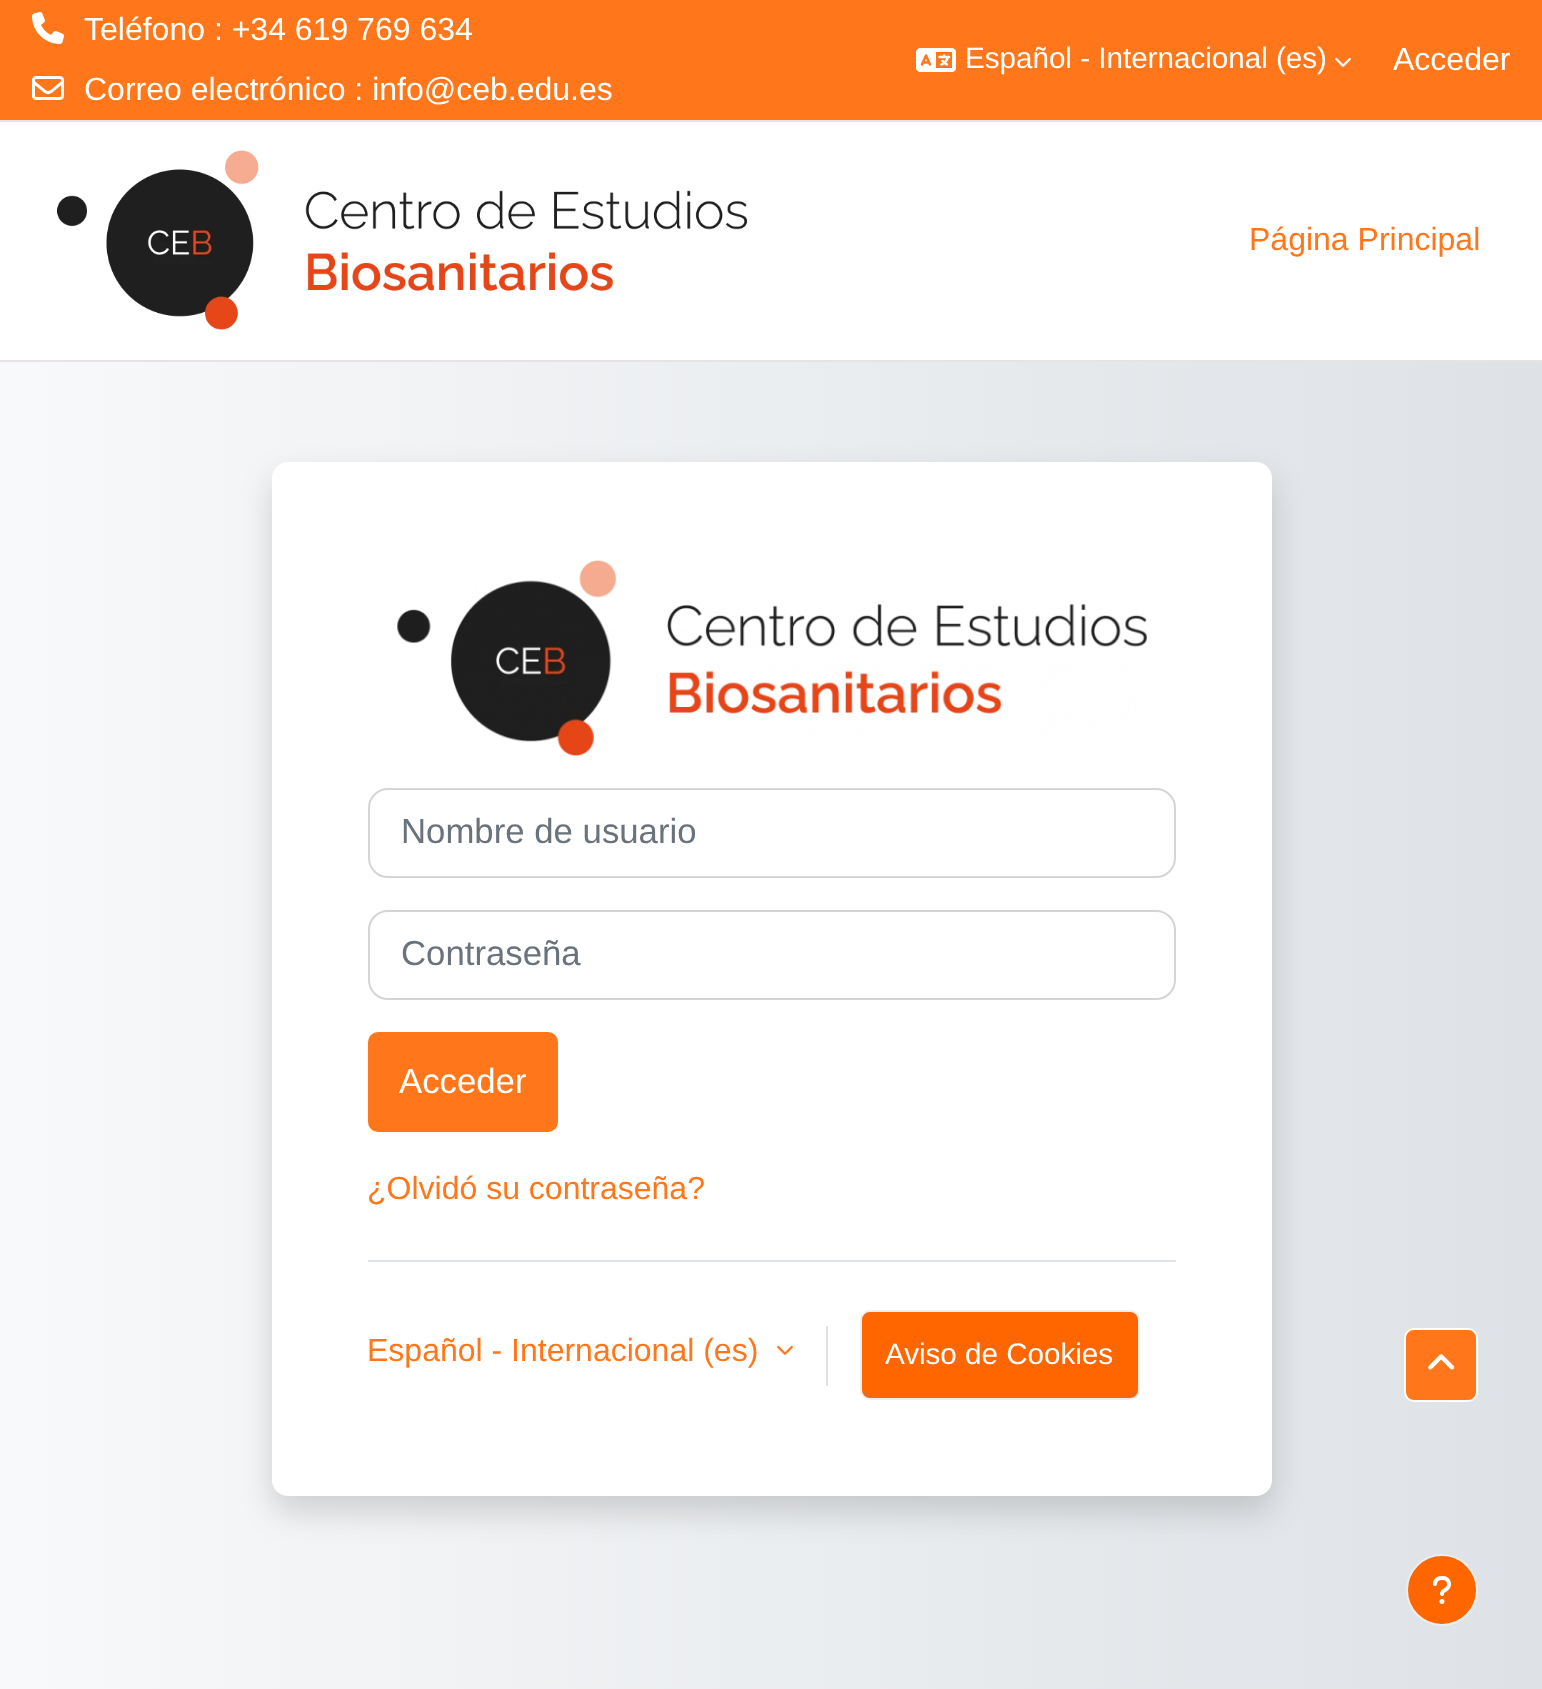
<!DOCTYPE html>
<meta charset="utf-8">
<style>body { margin: 0 } canvas { display: block }</style>
<canvas id="canvas" width="1542" height="1689"></canvas>
<script type="module">
  const canvas = document.getElementById("canvas");
  const ctx = canvas.getContext("2d");
  ctx.miterLimit = 4;
  ctx.fontKerning = "normal";
  async function loadImage(src) {
    const img = new Image();
    img.src = src;
    await img.decode();
    return img;
  }
  let gradient;

  ctx.fillStyle = "#ffffff";
  ctx.fillRect(0, 0, 1542, 1689);
  ctx.fillStyle = "#ff771a";
  ctx.fillRect(0, 0, 1542, 120);
  ctx.fillStyle = "#e8e3e3";
  ctx.fillRect(0, 120, 1542, 2);
  ctx.drawImage(await loadImage("img1.png"), 32, 12, 32, 32);
  ctx.font = "32px Liberation Sans";
  ctx.fillStyle = "#ffffff";
  ctx.fillText("Teléfono : +34 619 769 634", 84, 40);
  ctx.drawImage(await loadImage("img2.png"), 32, 76, 32, 24);
  ctx.fillText("Correo electrónico : info@ceb.edu.es", 84, 100);
  ctx.drawImage(await loadImage("img3.png"), 916, 48, 40, 24);
  ctx.font = "29.6px Liberation Sans";
  ctx.fillText("Español - Internacional (es)", 965, 68);
  ctx.drawImage(await loadImage("img4.png"), 1335, 57, 16, 10);
  ctx.font = "32px Liberation Sans";
  ctx.fillText("Acceder", 1393, 70);
  ctx.fillStyle = "#e8e3e3";
  ctx.fillRect(0, 360, 1542, 2);
  ctx.drawImage(await loadImage("img5.png"), 57, 150, 690, 180);
  ctx.fillStyle = "#ff771a";
  ctx.fillText("Página Principal", 1249, 250);
  gradient = ctx.createLinearGradient(0, 1026, 1542, 1026);
  gradient.addColorStop(0, "#f8f9fa");
  gradient.addColorStop(1, "#dee2e6");
  ctx.fillStyle = gradient;
  ctx.fillRect(0, 362, 1542, 1327);
  ctx.fillStyle = "rgba(0, 0, 0, 0.15)";
  ctx.filter = "blur(16px)";
  ctx.beginPath();
  ctx.roundRect(272, 478, 1000, 1034, 16);
  ctx.fill();
  ctx.filter = "none";
  ctx.fillStyle = "#ffffff";
  ctx.beginPath();
  ctx.roundRect(272, 462, 1000, 1034, 16);
  ctx.fill();
  ctx.drawImage(await loadImage("img6.png"), 397, 560, 750, 196);
  ctx.beginPath();
  ctx.roundRect(369, 789, 806, 88, 19);
  ctx.strokeStyle = "#d5d5d5";
  ctx.lineWidth = 2;
  ctx.stroke();
  ctx.font = "34.75px Liberation Sans";
  ctx.fillStyle = "#6a737b";
  ctx.fillText("Nombre de usuario", 401, 843);
  ctx.beginPath();
  ctx.roundRect(369, 911, 806, 88, 19);
  ctx.stroke();
  ctx.fillText("Contraseña", 401, 965);
  ctx.fillStyle = "#ff771a";
  ctx.beginPath();
  ctx.roundRect(368, 1032, 190, 100, 10);
  ctx.fill();
  ctx.fillStyle = "#ffffff";
  ctx.fillText("Acceder", 399, 1093);
  ctx.font = "32px Liberation Sans";
  ctx.fillStyle = "#ff771a";
  ctx.fillText("¿Olvidó su contraseña?", 367, 1199);
  ctx.fillStyle = "#dee2e6";
  ctx.fillRect(368, 1260, 808, 2);
  ctx.fillStyle = "#ff771a";
  ctx.fillText("Español - Internacional (es)", 367, 1361);
  ctx.drawImage(await loadImage("img7.png"), 777, 1345, 16, 10);
  ctx.fillStyle = "#dee2e6";
  ctx.fillRect(826, 1326, 2, 60);
  ctx.fillStyle = "#ff6600";
  ctx.beginPath();
  ctx.roundRect(861, 1311, 278, 88, 9);
  ctx.fill();
  ctx.strokeStyle = "#eeeeee";
  ctx.stroke();
  ctx.font = "29.6px Liberation Sans";
  ctx.fillStyle = "#ffffff";
  ctx.fillText("Aviso de Cookies", 885, 1364);
  ctx.fillStyle = "#ff771a";
  ctx.beginPath();
  ctx.roundRect(1405, 1329, 72, 72, 9);
  ctx.fill();
  ctx.strokeStyle = "#ffffff";
  ctx.stroke();
  ctx.drawImage(await loadImage("img8.png"), 1428, 1354, 27, 16);
  ctx.fillStyle = "#ff6600";
  ctx.beginPath();
  ctx.arc(1442, 1590, 35, 0, Math.PI * 2);
  ctx.fill();
  ctx.strokeStyle = "#eeeeee";
  ctx.stroke();
  ctx.drawImage(await loadImage("img9.png"), 1433, 1576, 18, 28);
</script>
